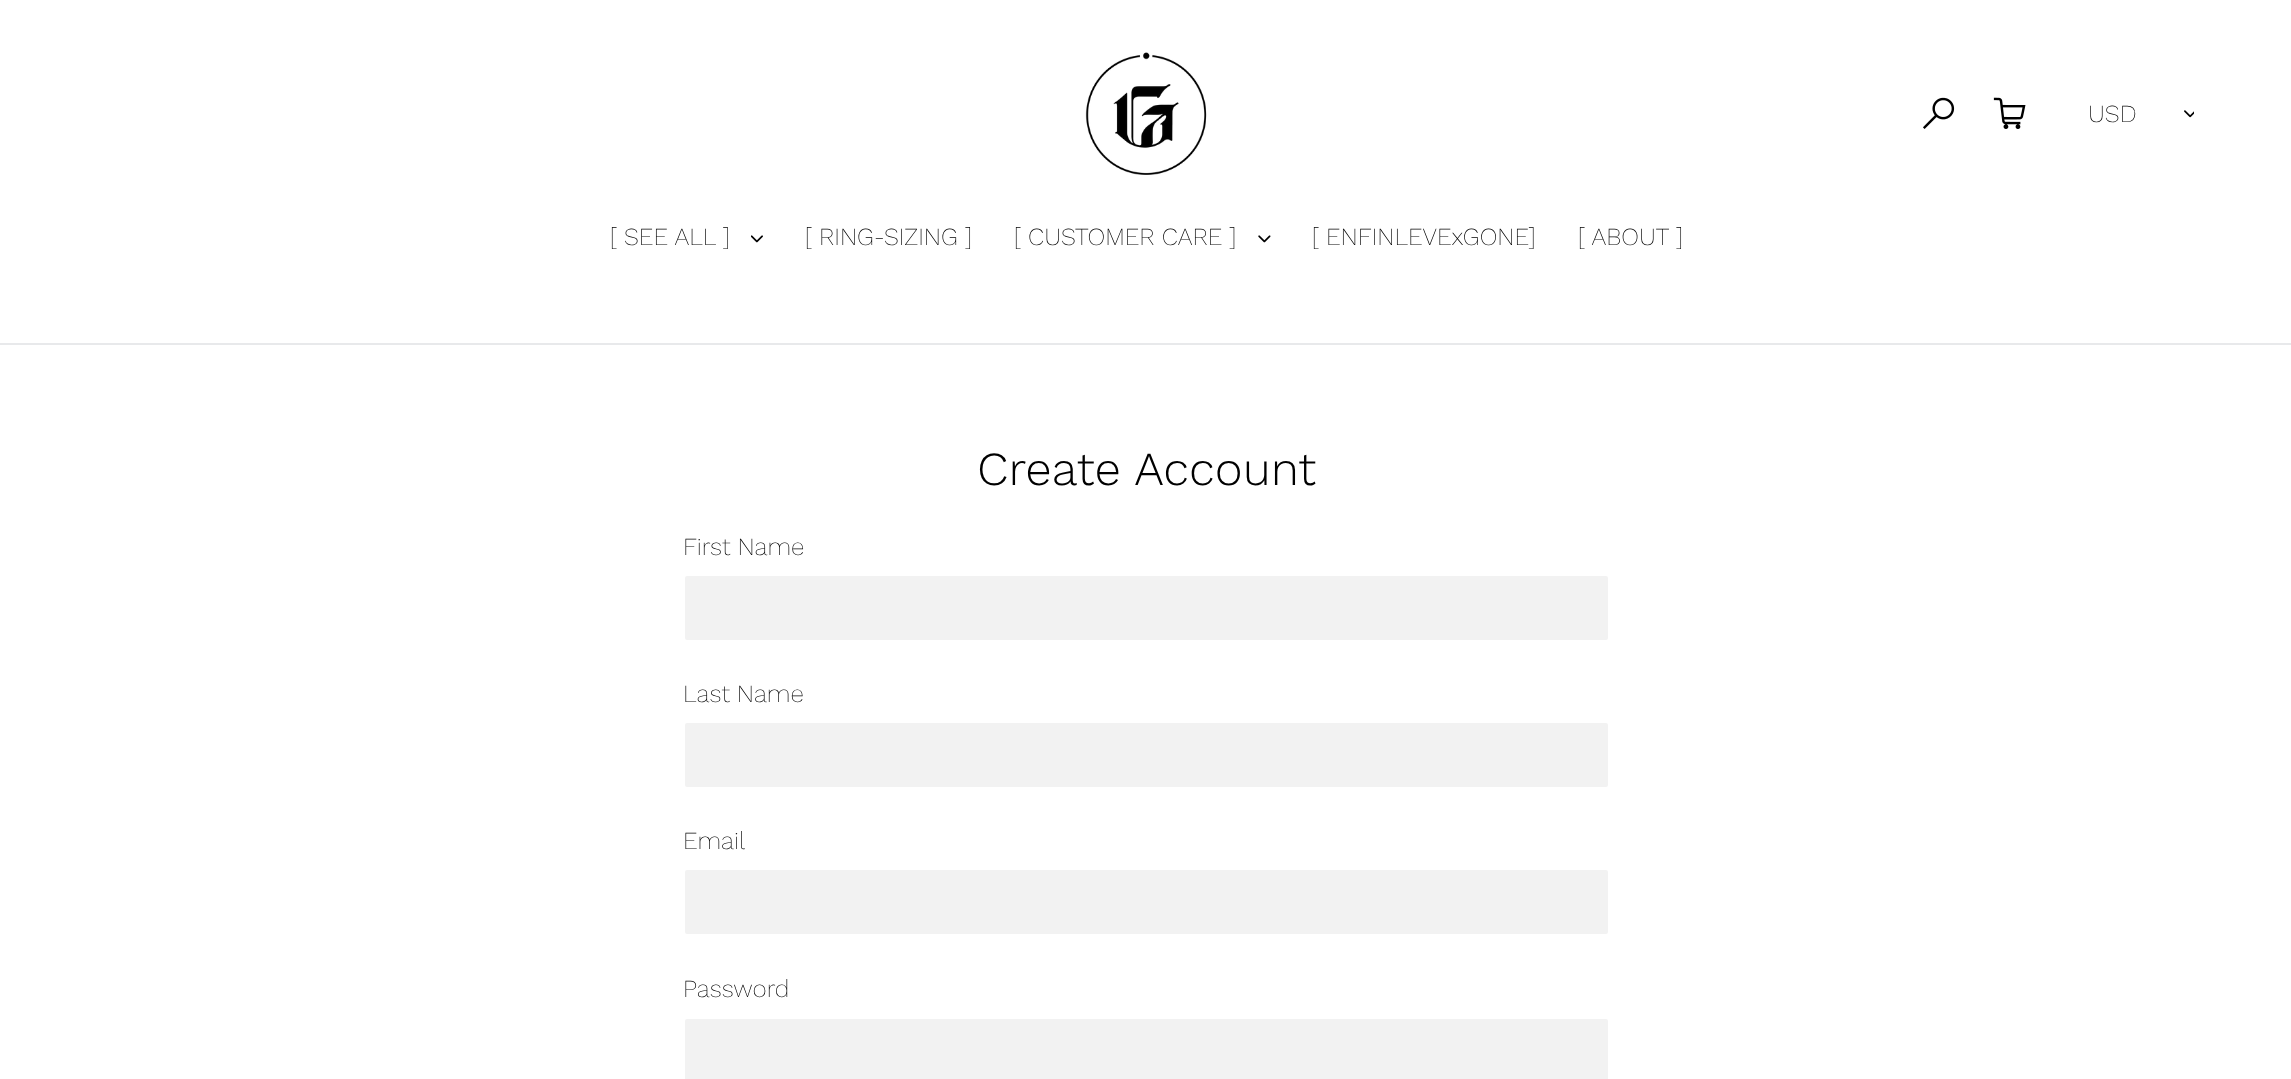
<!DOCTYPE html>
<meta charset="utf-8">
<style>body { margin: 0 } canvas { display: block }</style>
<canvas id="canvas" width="2291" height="1079"></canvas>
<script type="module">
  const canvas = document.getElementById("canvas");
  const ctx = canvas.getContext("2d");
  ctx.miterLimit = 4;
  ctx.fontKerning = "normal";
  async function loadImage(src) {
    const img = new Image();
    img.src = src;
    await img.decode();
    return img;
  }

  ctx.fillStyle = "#ffffff";
  ctx.fillRect(0, 0, 2291, 1079);
  ctx.drawImage(await loadImage("img1.png"), 1085, 52, 122, 123);
  ctx.drawImage(await loadImage("img2.png"), 1923, 97, 32, 32);
  ctx.drawImage(await loadImage("img3.png"), 1993, 97, 33, 32);
  ctx.font = "300 24.5px Work Sans";
  ctx.fillStyle = "#000000";
  ctx.fillText("USD", 2088, 122);
  ctx.drawImage(await loadImage("img4.png"), 2184, 110, 10, 8);
  ctx.fillStyle = "#e8e9eb";
  ctx.fillRect(0, 343, 2291, 2);
  ctx.fillStyle = "#000000";
  ctx.fillText("[ SEE ALL ]", 610, 245);
  ctx.drawImage(await loadImage("img5.png"), 751, 235, 12, 8);
  ctx.fillText("[ RING-SIZING ]", 805, 245);
  ctx.fillText("[ CUSTOMER CARE ]", 1014, 245);
  ctx.drawImage(await loadImage("img6.png"), 1258, 235, 13, 8);
  ctx.fillText("[ ENFINLEVExGONE]", 1312, 245);
  ctx.fillText("[ ABOUT ]", 1578, 245);
  ctx.font = "300 47.25px 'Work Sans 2'";
  ctx.fillText("Create Account", 977, 485);
  ctx.font = "300 24.5px Work Sans";
  ctx.fillText("First Name", 683, 555);
  ctx.fillStyle = "#f2f2f2";
  ctx.beginPath();
  ctx.roundRect(684, 575, 925, 66, 3);
  ctx.fill();
  ctx.strokeStyle = "#ffffff";
  ctx.lineWidth = 2;
  ctx.stroke();
  ctx.fillStyle = "#000000";
  ctx.fillText("Last Name", 683, 702);
  ctx.fillStyle = "#f2f2f2";
  ctx.beginPath();
  ctx.roundRect(684, 722, 925, 66, 3);
  ctx.fill();
  ctx.stroke();
  ctx.fillStyle = "#000000";
  ctx.fillText("Email", 683, 849);
  ctx.fillStyle = "#f2f2f2";
  ctx.beginPath();
  ctx.roundRect(684, 869, 925, 66, 3);
  ctx.fill();
  ctx.stroke();
  ctx.fillStyle = "#000000";
  ctx.fillText("Password", 683, 997);
  ctx.fillStyle = "#f2f2f2";
  ctx.beginPath();
  ctx.roundRect(684, 1018, 925, 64, 3);
  ctx.fill();
  ctx.stroke();
</script>
